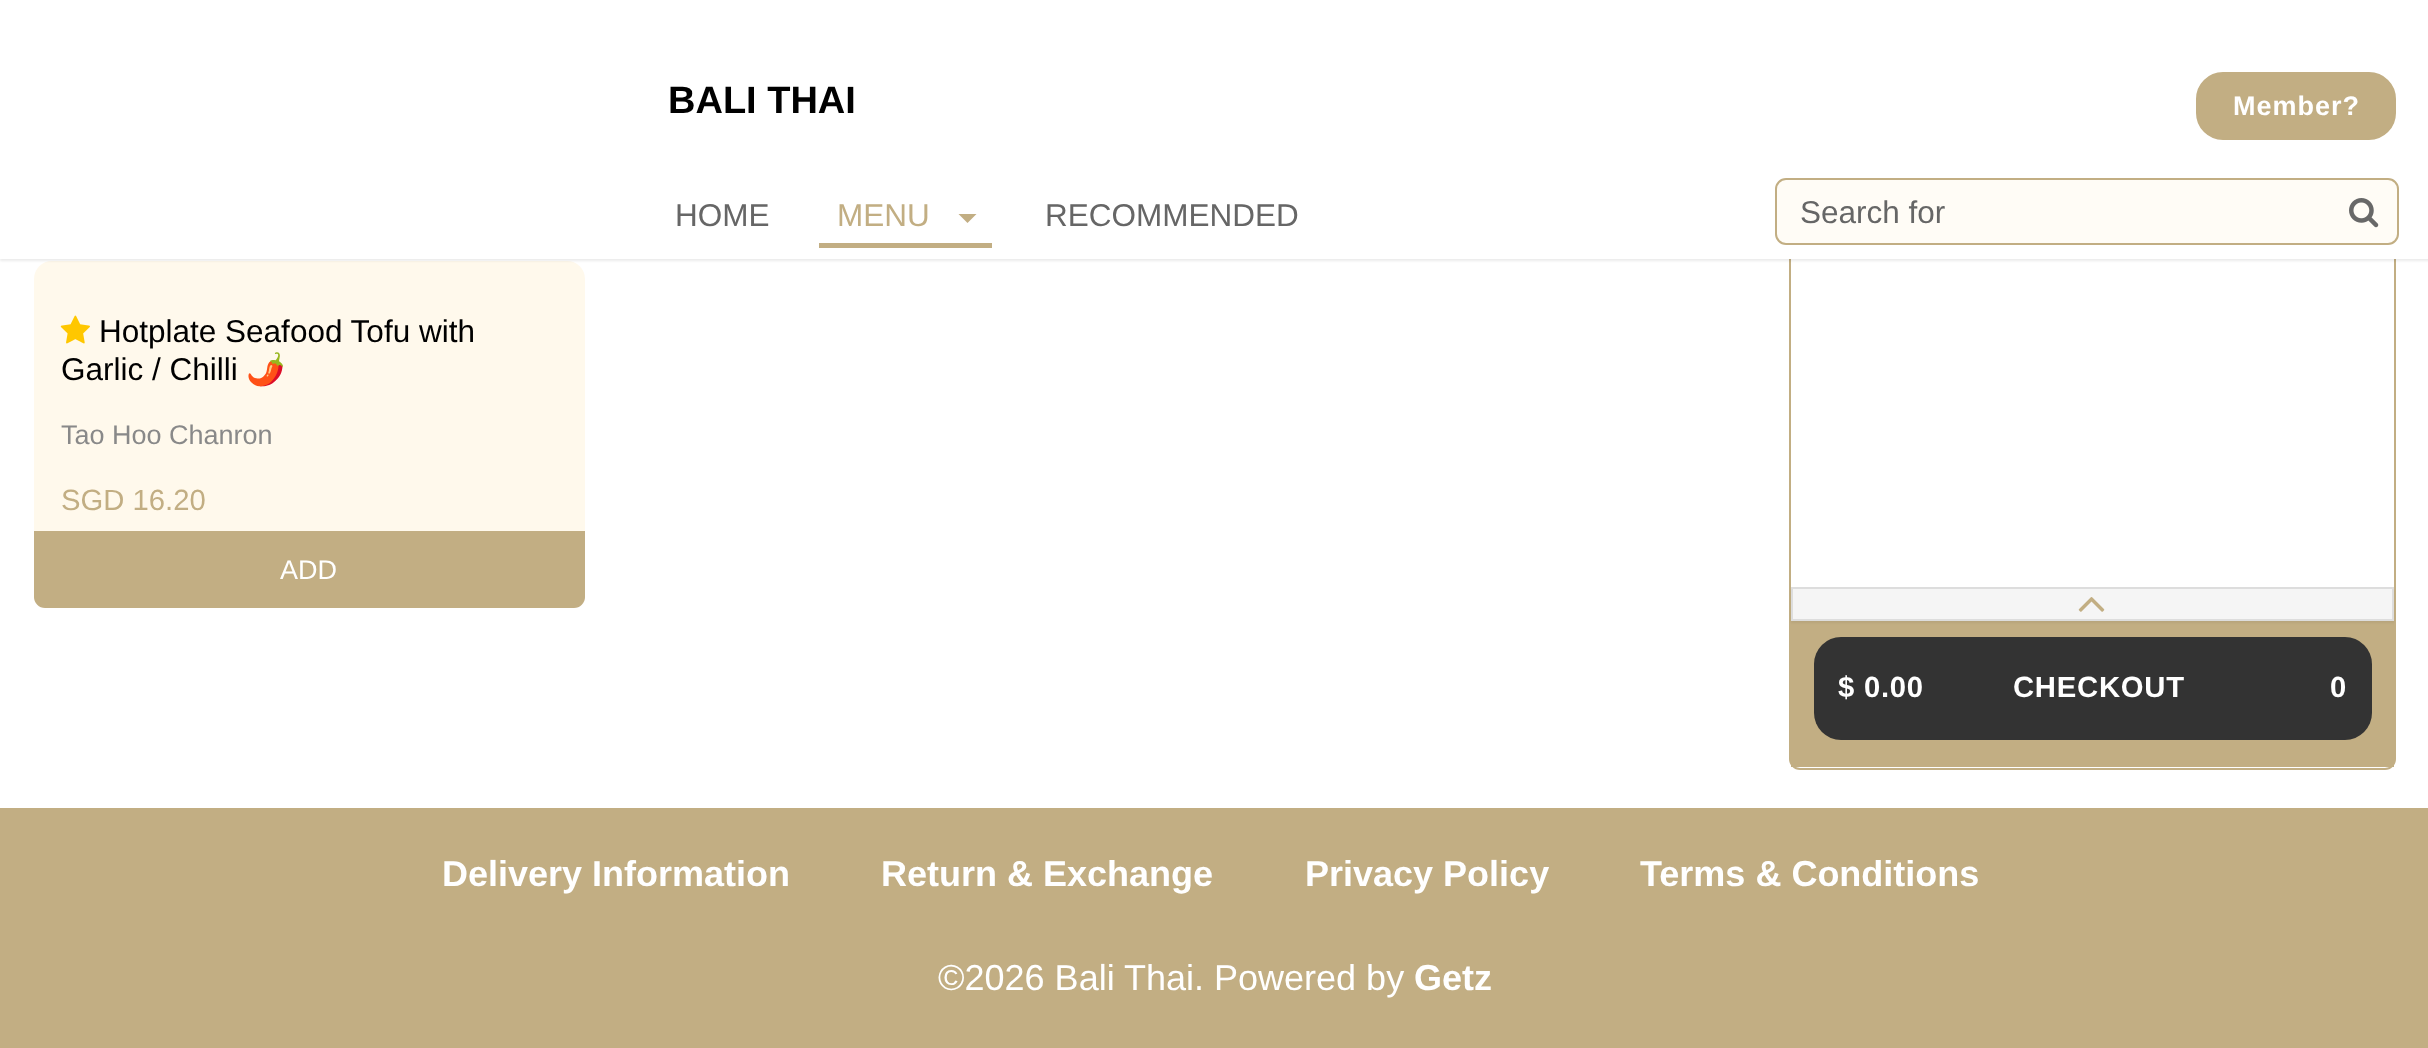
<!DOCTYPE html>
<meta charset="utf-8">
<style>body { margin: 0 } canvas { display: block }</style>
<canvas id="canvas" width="2428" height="1048"></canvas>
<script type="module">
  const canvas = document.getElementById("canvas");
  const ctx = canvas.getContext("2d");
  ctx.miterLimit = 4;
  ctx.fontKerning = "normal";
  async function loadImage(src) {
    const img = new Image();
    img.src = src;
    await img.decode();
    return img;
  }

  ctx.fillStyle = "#ffffff";
  ctx.fillRect(0, 0, 2428, 1048);
  ctx.fillStyle = "#fff9ec";
  ctx.beginPath();
  ctx.roundRect(34, 261, 551, 347, 18);
  ctx.fill();
  ctx.beginPath();
  ctx.moveTo(1790, -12);
  ctx.lineTo(2395, -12);
  ctx.lineTo(2395, 759);
  ctx.bezierCurveTo(2395, 764.5, 2390.5, 769, 2385, 769);
  ctx.lineTo(1800, 769);
  ctx.bezierCurveTo(1794.5, 769, 1790, 764.5, 1790, 759);
  ctx.closePath();
  ctx.strokeStyle = "#c2ae83";
  ctx.lineWidth = 2;
  ctx.stroke();
  ctx.fillStyle = "rgba(0, 0, 0, 0.08)";
  ctx.filter = "blur(1px)";
  ctx.beginPath();
  ctx.rect(0, 2, 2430, 259);
  ctx.fill();
  ctx.filter = "none";
  ctx.fillStyle = "#ffffff";
  ctx.fillRect(0, 0, 2428, 259);
  ctx.font = "bold 38px Liberation Sans";
  ctx.fillStyle = "#000000";
  ctx.fillText("BALI THAI", 668, 113);
  ctx.fillStyle = "#c2ae83";
  ctx.beginPath();
  ctx.roundRect(2197, 73, 198, 66, 26);
  ctx.fill();
  ctx.stroke();
  ctx.letterSpacing = "1px";
  ctx.font = "bold 27px Liberation Sans";
  ctx.fillStyle = "#ffffff";
  ctx.fillText("Member?", 2233, 115);
  ctx.fillStyle = "#fffcf6";
  ctx.beginPath();
  ctx.roundRect(1776, 179, 622, 65, 10);
  ctx.fill();
  ctx.stroke();
  ctx.letterSpacing = "0px";
  ctx.font = "31.5px Liberation Sans";
  ctx.fillStyle = "#666666";
  ctx.fillText("Search for", 1800, 223);
  ctx.drawImage(await loadImage("img1.png"), 2349, 198, 30, 30);
  ctx.fillText("HOME", 675, 226);
  ctx.fillStyle = "#c2ae83";
  ctx.fillText("MENU", 837, 226);
  ctx.beginPath();
  ctx.moveTo(958.5, 214);
  ctx.lineTo(976.5, 214);
  ctx.lineTo(967.5, 223);
  ctx.closePath();
  ctx.fill();
  ctx.fillRect(819, 243, 173, 5);
  ctx.fillStyle = "#666666";
  ctx.fillText("RECOMMENDED", 1045, 226);
  ctx.drawImage(await loadImage("img2.png"), 60, 315, 30, 29);
  ctx.fillStyle = "#000000";
  ctx.fillText("Hotplate Seafood Tofu with", 99, 342);
  ctx.fillText("Garlic / Chilli", 61, 380);
  ctx.font = "31.5px Noto Color Emoji";
  ctx.fillText("🌶️", 246, 380);
  ctx.font = "27px Liberation Sans";
  ctx.fillStyle = "#898989";
  ctx.fillText("Tao Hoo Chanron", 61, 444);
  ctx.font = "29.25px Liberation Sans";
  ctx.fillStyle = "#c2ae83";
  ctx.fillText("SGD 16.20", 61, 510);
  ctx.beginPath();
  ctx.roundRect(34, 531, 551, 77, [0, 0, 11, 11]);
  ctx.fill();
  ctx.font = "27px Liberation Sans";
  ctx.fillStyle = "#ffffff";
  ctx.fillText("ADD", 280, 579);
  ctx.fillStyle = "#c2ae83";
  ctx.fillRect(1791, 621, 603, 146);
  ctx.fillStyle = "rgba(0, 0, 0, 0.05)";
  ctx.filter = "blur(1px)";
  ctx.beginPath();
  ctx.rect(1791, 590, 603, 33);
  ctx.fill();
  ctx.filter = "none";
  ctx.fillStyle = "#f5f5f5";
  ctx.beginPath();
  ctx.rect(1792, 588, 601, 32);
  ctx.fill();
  ctx.strokeStyle = "#dddddd";
  ctx.stroke();
  ctx.drawImage(await loadImage("img3.png"), 2078, 597, 27, 15);
  ctx.fillStyle = "#333333";
  ctx.beginPath();
  ctx.roundRect(1814, 637, 558, 103, 27);
  ctx.fill();
  ctx.letterSpacing = "0.75px";
  ctx.font = "bold 29.25px Liberation Sans";
  ctx.fillStyle = "#ffffff";
  ctx.fillText("$ 0.00", 1838, 697);
  ctx.fillText("CHECKOUT", 2013, 697);
  ctx.fillText("0", 2330, 697);
  ctx.fillStyle = "#c2ae83";
  ctx.fillRect(0, 808, 2428, 240);
  ctx.letterSpacing = "0px";
  ctx.font = "bold 36px Liberation Sans";
  ctx.fillStyle = "#ffffff";
  ctx.fillText("Delivery Information", 442, 886);
  ctx.fillText("Return & Exchange", 881, 886);
  ctx.fillText("Privacy Policy", 1305, 886);
  ctx.fillText("Terms & Conditions", 1640, 886);
  ctx.font = "36px Liberation Sans";
  ctx.fillText("©2026 Bali Thai. Powered by", 938, 990);
  ctx.font = "bold 36px Liberation Sans";
  ctx.fillText("Getz", 1414, 990);
</script>
